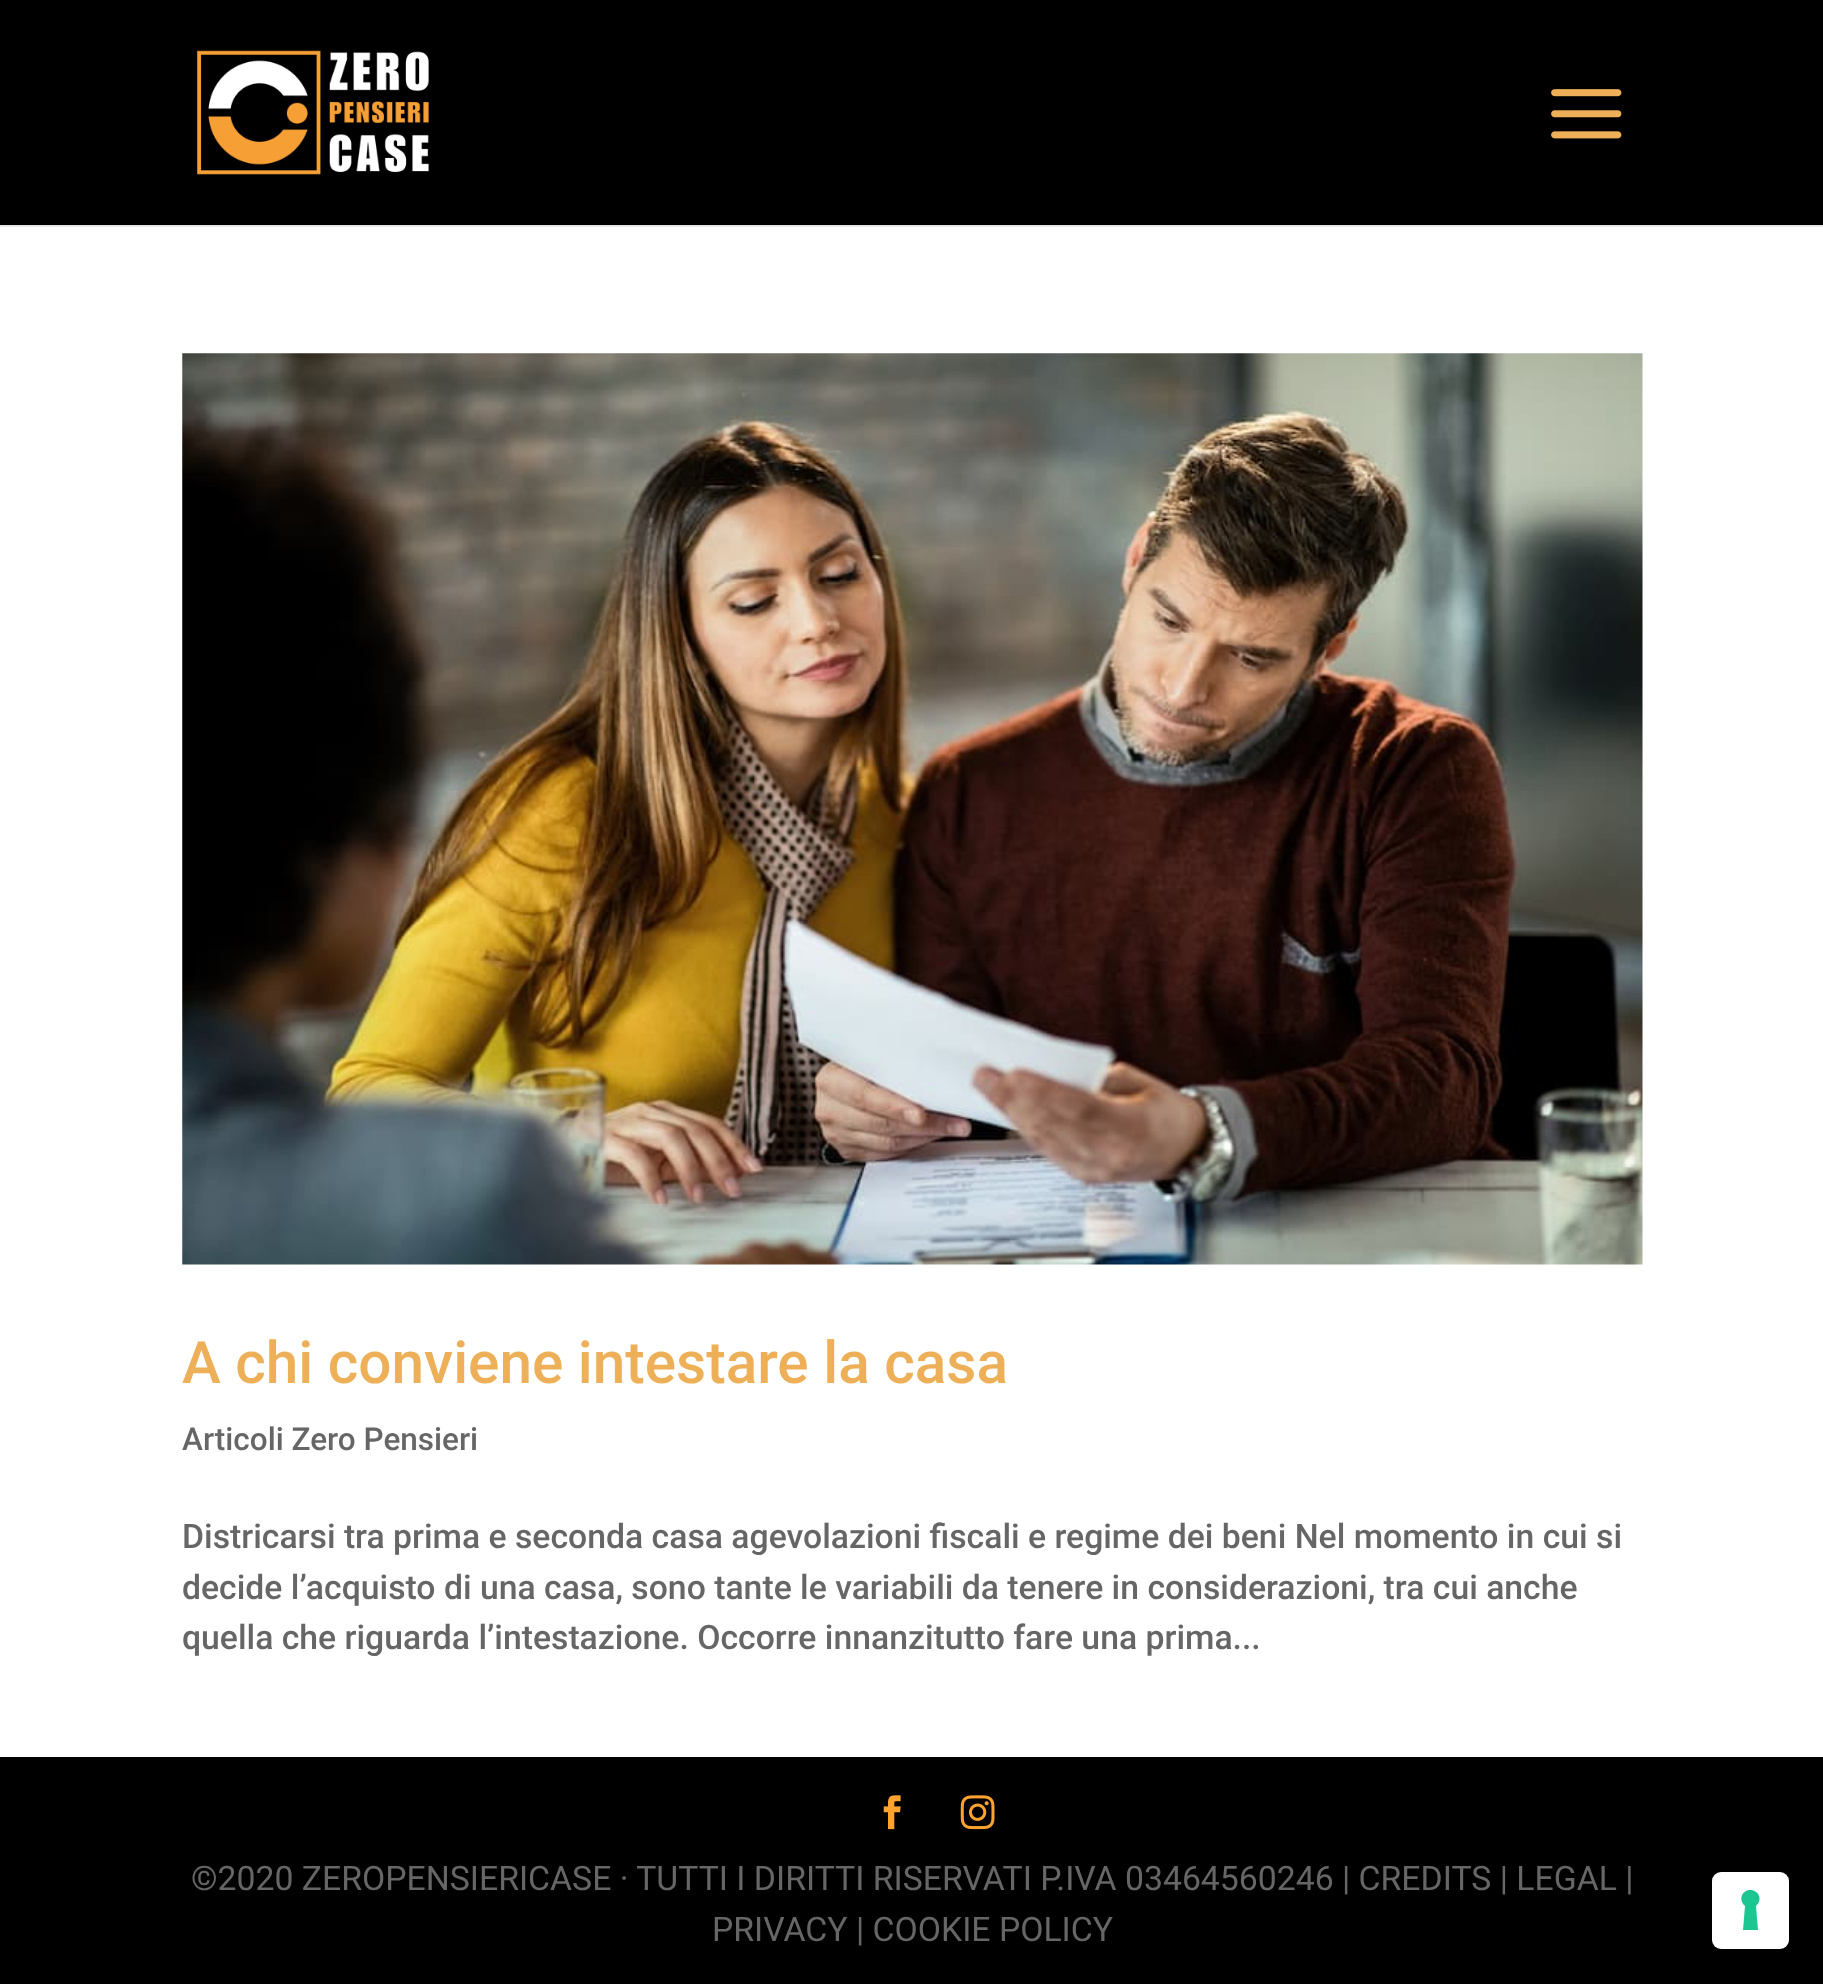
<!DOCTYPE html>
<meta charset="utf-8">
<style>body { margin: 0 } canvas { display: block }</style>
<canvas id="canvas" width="1823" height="1984"></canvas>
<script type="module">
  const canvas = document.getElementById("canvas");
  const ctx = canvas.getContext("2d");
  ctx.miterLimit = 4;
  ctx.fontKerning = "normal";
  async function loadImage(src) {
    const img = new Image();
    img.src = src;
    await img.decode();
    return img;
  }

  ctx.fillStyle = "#ffffff";
  ctx.fillRect(0, 0, 1823, 1984);
  ctx.fillStyle = "#e6e6e6";
  ctx.beginPath();
  ctx.moveTo(0, 225);
  ctx.lineTo(0, 227);
  ctx.lineTo(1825, 227);
  ctx.lineTo(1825, 2);
  ctx.lineTo(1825, 225);
  ctx.closePath();
  ctx.fill();
  ctx.fillStyle = "#000000";
  ctx.fillRect(0, 0, 1823, 225);
  ctx.drawImage(await loadImage("img1.png"), 197, 50, 232, 125);
  ctx.drawImage(await loadImage("img2.png"), 1551, 89, 71, 50);
  ctx.drawImage(await loadImage("img3.png"), 182, 353, 1461, 912);
  ctx.font = "500 58.5px Roboto";
  ctx.fillStyle = "#edb059";
  ctx.fillText("A chi conviene intestare la casa", 182, 1383);
  ctx.font = "500 31.5px Roboto";
  ctx.fillStyle = "#666666";
  ctx.fillText("Articoli Zero Pensieri", 182, 1450);
  ctx.font = "500 33.75px Roboto";
  ctx.fillText("Districarsi tra prima e seconda casa agevolazioni fiscali e regime dei beni Nel momento in cui si", 182, 1548);
  ctx.fillText("decide l’acquisto di una casa, sono tante le variabili da tenere in considerazioni, tra cui anche", 182, 1599);
  ctx.fillText("quella che riguarda l’intestazione. Occorre innanzitutto fare una prima...", 182, 1649);
  ctx.fillStyle = "#000000";
  ctx.fillRect(0, 1757, 1823, 227);
  ctx.drawImage(await loadImage("img4.png"), 883, 1795, 18, 35);
  ctx.drawImage(await loadImage("img5.png"), 960, 1795, 35, 35);
  ctx.font = "33.75px Roboto";
  ctx.fillStyle = "#666666";
  ctx.fillText("©2020 ZEROPENSIERICASE · TUTTI I DIRITTI RISERVATI P.IVA 03464560246 | CREDITS | LEGAL |", 191, 1890);
  ctx.fillText("PRIVACY | COOKIE POLICY", 712, 1941);
  ctx.fillStyle = "#ffffff";
  ctx.beginPath();
  ctx.roundRect(1712, 1872, 77, 77, 9);
  ctx.fill();
  ctx.fillStyle = "#1cc691";
  ctx.beginPath();
  ctx.moveTo(1750, 1890);
  ctx.bezierCurveTo(1759, 1890, 1763, 1900, 1756, 1906);
  ctx.lineTo(1758, 1930);
  ctx.lineTo(1743, 1930);
  ctx.lineTo(1745, 1906);
  ctx.bezierCurveTo(1738, 1900, 1742, 1890, 1750, 1890);
  ctx.closePath();
  ctx.fill("evenodd");
</script>
